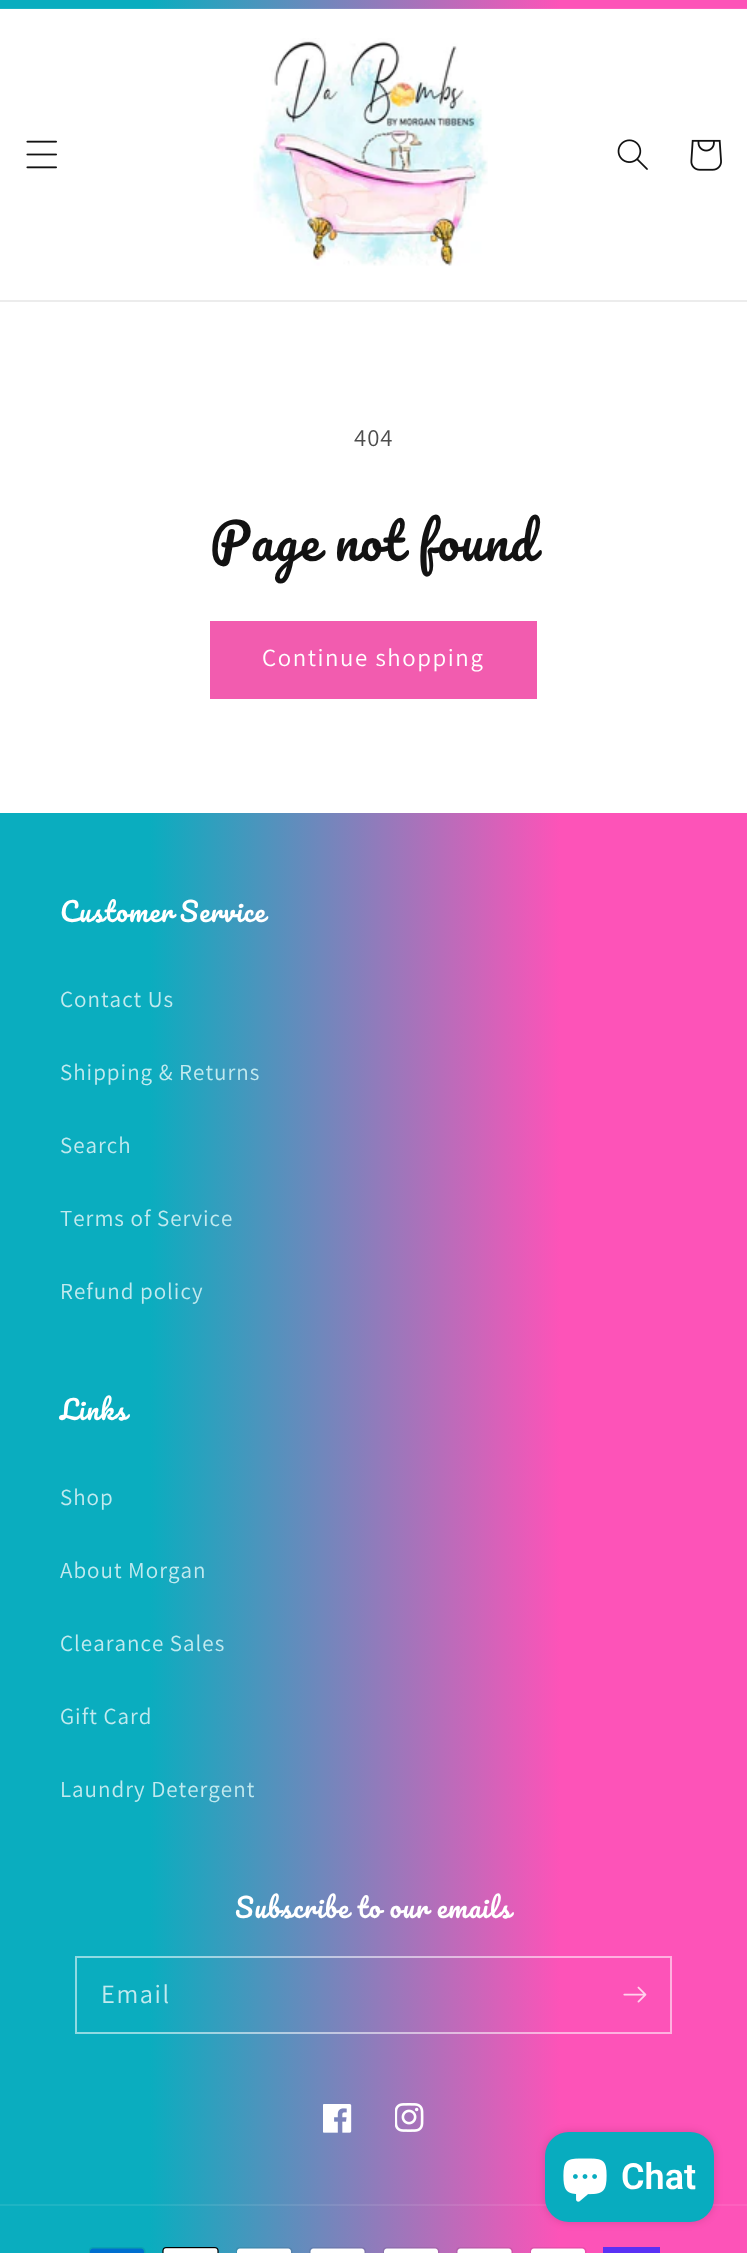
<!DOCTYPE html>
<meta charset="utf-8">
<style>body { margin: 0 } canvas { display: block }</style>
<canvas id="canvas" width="747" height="2253"></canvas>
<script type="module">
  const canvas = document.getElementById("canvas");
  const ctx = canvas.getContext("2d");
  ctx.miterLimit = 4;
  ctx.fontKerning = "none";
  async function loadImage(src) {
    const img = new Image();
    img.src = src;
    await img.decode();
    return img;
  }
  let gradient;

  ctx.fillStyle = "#ffffff";
  ctx.fillRect(0, 0, 747, 2253);
  gradient = ctx.createLinearGradient(0, 1127, 747, 1127);
  gradient.addColorStop(0.2, "#0aadbf");
  gradient.addColorStop(0.75, "#fd53b8");
  ctx.fillStyle = gradient;
  ctx.fillRect(0, 0, 747, 8);
  gradient = ctx.createLinearGradient(0, 1127, 747, 1127);
  gradient.addColorStop(0.2, "#1eb4c4");
  gradient.addColorStop(0.75, "#fd61be");
  ctx.fillStyle = gradient;
  ctx.fillRect(0, 8, 747, 1);
  ctx.fillStyle = "#ececec";
  ctx.fillRect(0, 300, 747, 2);
  ctx.drawImage(await loadImage("img1.png"), 26, 140, 31, 29);
  ctx.drawImage(await loadImage("img2.png"), 253, 38, 235, 228);
  ctx.drawImage(await loadImage("img3.png"), 617, 139, 31, 31);
  ctx.drawImage(await loadImage("img4.png"), 690, 139, 32, 32);
  ctx.letterSpacing = "1px";
  ctx.font = "24.75px Assistant";
  ctx.fillStyle = "#4d4d4d";
  ctx.fillText("404", 354, 446);
  ctx.font = "49.5px Pacifico";
  ctx.fillStyle = "#121212";
  ctx.fillText("Page not found", 210, 561);
  ctx.strokeStyle = "#f25caf";
  ctx.lineWidth = 2;
  ctx.strokeRect(211, 622, 325, 76);
  ctx.fillStyle = "#f25caf";
  ctx.fillRect(212, 623, 323, 74);
  ctx.letterSpacing = "1.6px";
  ctx.font = "24.75px Assistant";
  ctx.fillStyle = "#ffffff";
  ctx.fillText("Continue shopping", 262, 666);
  gradient = ctx.createLinearGradient(0, 1127, 747, 1127);
  gradient.addColorStop(0.2, "#0aadbf");
  gradient.addColorStop(0.75, "#fd53b8");
  ctx.fillStyle = gradient;
  ctx.fillRect(0, 813, 747, 1440);
  gradient = ctx.createLinearGradient(0, 1127, 747, 1127);
  gradient.addColorStop(0.2, "#1eb4c4");
  gradient.addColorStop(0.75, "#fd61be");
  ctx.fillStyle = gradient;
  ctx.fillRect(0, 2204, 747, 2);
  ctx.letterSpacing = "1px";
  ctx.wordSpacing = "-2px";
  ctx.font = "26.4px Pacifico";
  ctx.fillStyle = "#ffffff";
  ctx.fillText("Customer Service", 60, 922);
  ctx.wordSpacing = "0px";
  ctx.font = "23px Assistant";
  ctx.fillStyle = "#c2eaef";
  ctx.fillText("Contact Us", 60, 1007);
  ctx.fillText("Shipping & Returns", 60, 1080);
  ctx.fillText("Search", 60, 1153);
  ctx.fillText("Terms of Service", 60, 1226);
  ctx.fillText("Refund policy", 60, 1299);
  ctx.font = "26.4px Pacifico";
  ctx.fillStyle = "#ffffff";
  ctx.fillText("Links", 60, 1420);
  ctx.font = "23px Assistant";
  ctx.fillStyle = "#c2eaef";
  ctx.fillText("Shop", 60, 1505);
  ctx.fillText("About Morgan", 60, 1578);
  ctx.fillText("Clearance Sales", 60, 1651);
  ctx.fillText("Gift Card", 60, 1724);
  ctx.fillText("Laundry Detergent", 60, 1797);
  ctx.font = "26.4px Pacifico";
  ctx.fillStyle = "#ffffff";
  ctx.fillText("Subscribe to our emails", 235, 1918);
  ctx.strokeStyle = "rgba(255, 255, 255, 0.55)";
  ctx.strokeRect(76, 1957, 595, 76);
  ctx.letterSpacing = "1.6px";
  ctx.font = "26.4px Assistant";
  ctx.fillStyle = "#c2eaef";
  ctx.fillText("Email", 101, 2003);
  ctx.drawImage(await loadImage("img5.png"), 623, 1986, 24, 17);
  ctx.drawImage(await loadImage("img6.png"), 323, 2104, 29, 29);
  ctx.drawImage(await loadImage("img7.png"), 395, 2103, 29, 29);
  ctx.drawImage(await loadImage("img8.png"), 89, 2247, 57, 6);
  ctx.drawImage(await loadImage("img9.png"), 162, 2247, 57, 6);
  ctx.drawImage(await loadImage("img10.png"), 236, 2247, 57, 6);
  ctx.drawImage(await loadImage("img11.png"), 309, 2247, 57, 6);
  ctx.drawImage(await loadImage("img12.png"), 383, 2247, 57, 6);
  ctx.drawImage(await loadImage("img13.png"), 456, 2247, 57, 6);
  ctx.drawImage(await loadImage("img14.png"), 530, 2247, 57, 6);
  ctx.fillStyle = "#5a31f4";
  ctx.fillRect(603, 2247, 57, 6);
  ctx.fillStyle = "rgba(0, 0, 0, 0.15)";
  ctx.filter = "blur(4px)";
  ctx.beginPath();
  ctx.roundRect(545, 2132, 169, 90, 24);
  ctx.fill();
  ctx.filter = "none";
  ctx.fillStyle = "#08acbf";
  ctx.beginPath();
  ctx.roundRect(545, 2132, 169, 90, 24);
  ctx.fill();
  ctx.drawImage(await loadImage("img15.png"), 563, 2158, 44, 44);
  ctx.letterSpacing = "0px";
  ctx.font = "600 36px Roboto";
  ctx.fillStyle = "#ffffff";
  ctx.fillText("Chat", 621, 2189);
</script>
